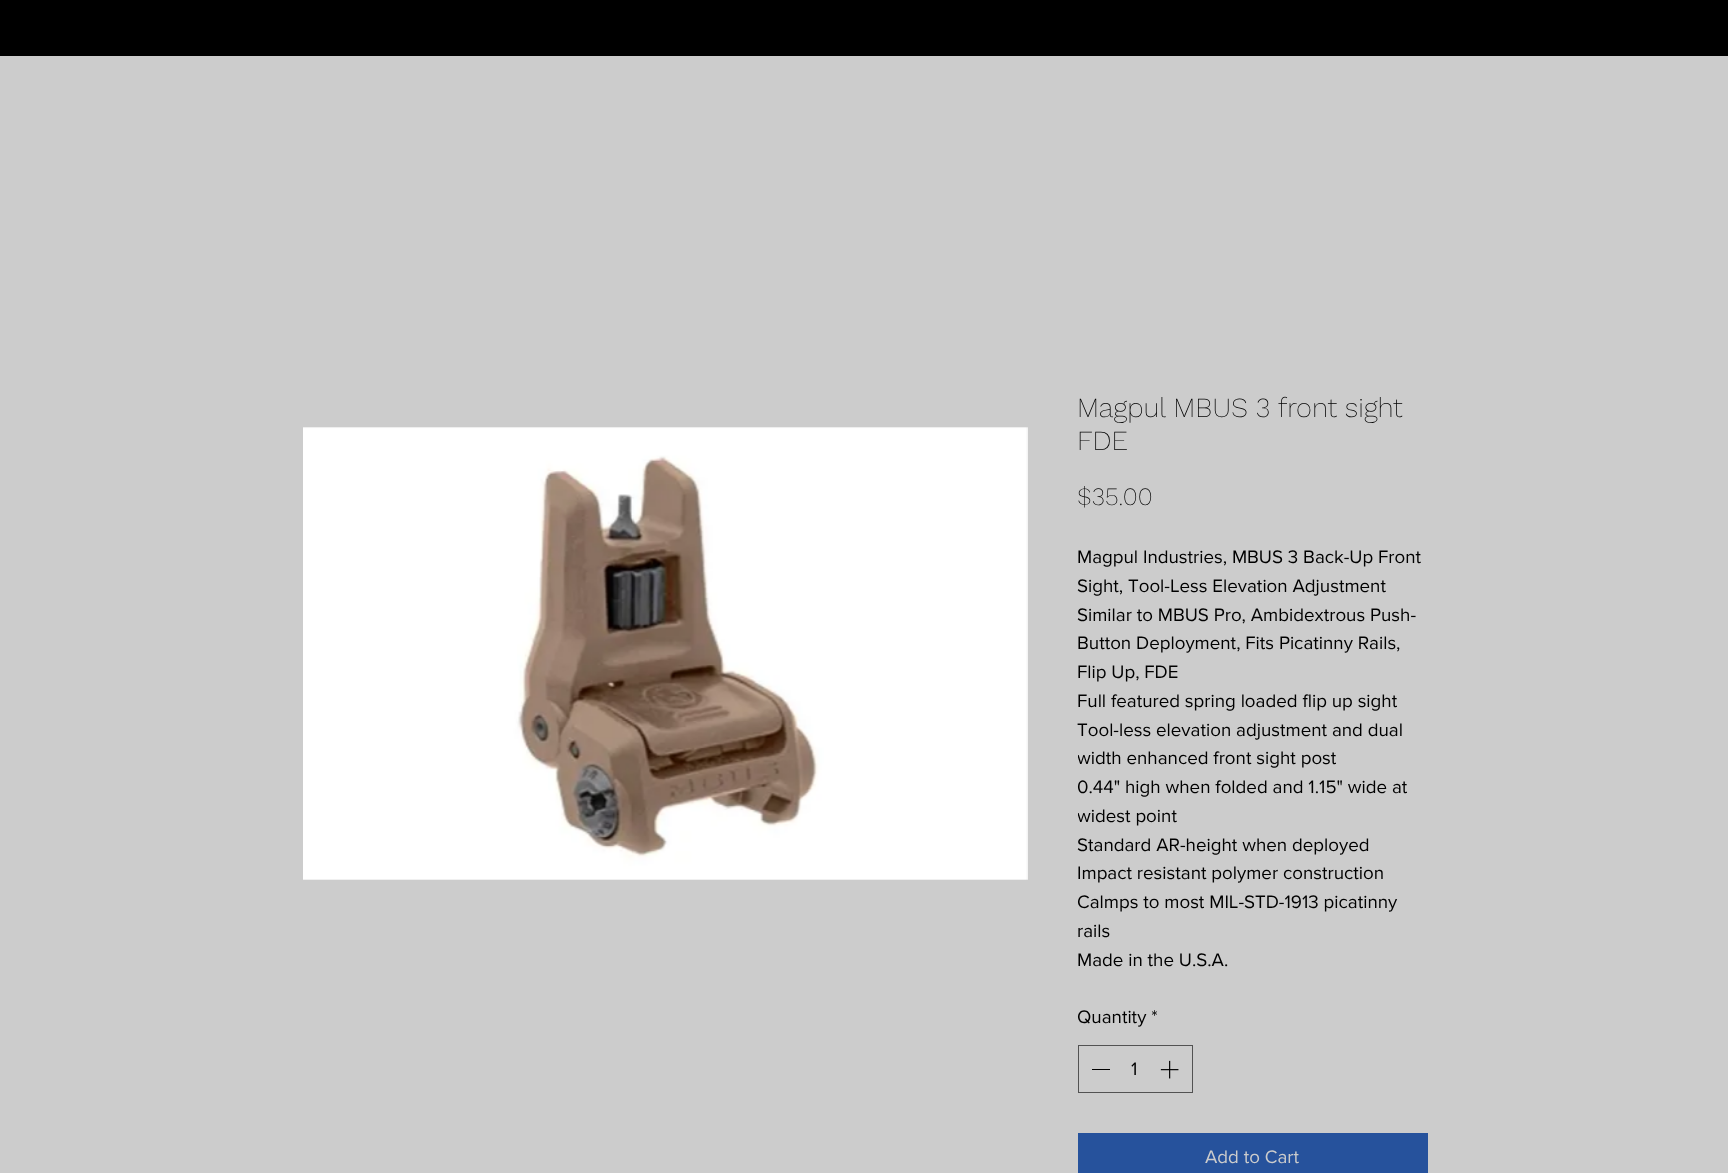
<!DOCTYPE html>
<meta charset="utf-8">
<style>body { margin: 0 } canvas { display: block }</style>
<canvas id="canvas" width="1728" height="1173"></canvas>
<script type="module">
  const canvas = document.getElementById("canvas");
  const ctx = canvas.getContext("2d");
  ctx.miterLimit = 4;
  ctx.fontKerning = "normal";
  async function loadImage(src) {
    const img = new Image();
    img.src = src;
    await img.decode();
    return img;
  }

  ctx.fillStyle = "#cccccc";
  ctx.fillRect(0, 0, 1728, 1173);
  ctx.fillStyle = "#000000";
  ctx.fillRect(0, 0, 1728, 56);
  ctx.drawImage(await loadImage("img1.png"), 303, 427, 725, 453);
  ctx.font = "200 27.5px Work Sans";
  ctx.fillText("Magpul MBUS 3 front sight", 1077, 417);
  ctx.fillText("FDE", 1077, 450);
  ctx.font = "200 25px Work Sans";
  ctx.fillText("$35.00", 1077, 505);
  ctx.font = "18.75px 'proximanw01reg'";
  ctx.fillText("Magpul Industries, MBUS 3 Back-Up Front", 1077, 563);
  ctx.fillText("Sight, Tool-Less Elevation Adjustment", 1077, 592);
  ctx.fillText("Similar to MBUS Pro, Ambidextrous Push-", 1077, 621);
  ctx.fillText("Button Deployment, Fits Picatinny Rails,", 1077, 649);
  ctx.fillText("Flip Up, FDE", 1077, 678);
  ctx.fillText("Full featured spring loaded flip up sight", 1077, 707);
  ctx.fillText("Tool-less elevation adjustment and dual", 1077, 736);
  ctx.save();
  ctx.beginPath();
  ctx.rect(1078, 543, 350, 431);
  ctx.clip();
  ctx.fillText("width enhanced front sight post", 1077, 764);
  ctx.restore();
  ctx.fillText("0.44\" high when folded and 1.15\" wide at", 1077, 793);
  ctx.save();
  ctx.beginPath();
  ctx.rect(1078, 543, 350, 431);
  ctx.clip();
  ctx.fillText("widest point", 1077, 822);
  ctx.restore();
  ctx.fillText("Standard AR-height when deployed", 1077, 851);
  ctx.fillText("Impact resistant polymer construction", 1077, 879);
  ctx.fillText("Calmps to most MIL-STD-1913 picatinny", 1077, 908);
  ctx.fillText("rails", 1077, 937);
  ctx.fillText("Made in the U.S.A.", 1077, 966);
  ctx.fillText("Quantity *", 1077, 1023);
  ctx.strokeStyle = "#525252";
  ctx.strokeRect(1078.5, 1045.5, 114, 47);
  ctx.fillRect(1092, 1069, 18, 1);
  ctx.fillText("1", 1131, 1075);
  ctx.drawImage(await loadImage("img2.png"), 1160, 1060, 19, 19);
  ctx.fillStyle = "#26529c";
  ctx.fillRect(1078, 1133, 350, 40);
  ctx.fillStyle = "#cccccc";
  ctx.fillText("Add to Cart", 1205, 1163);
</script>
